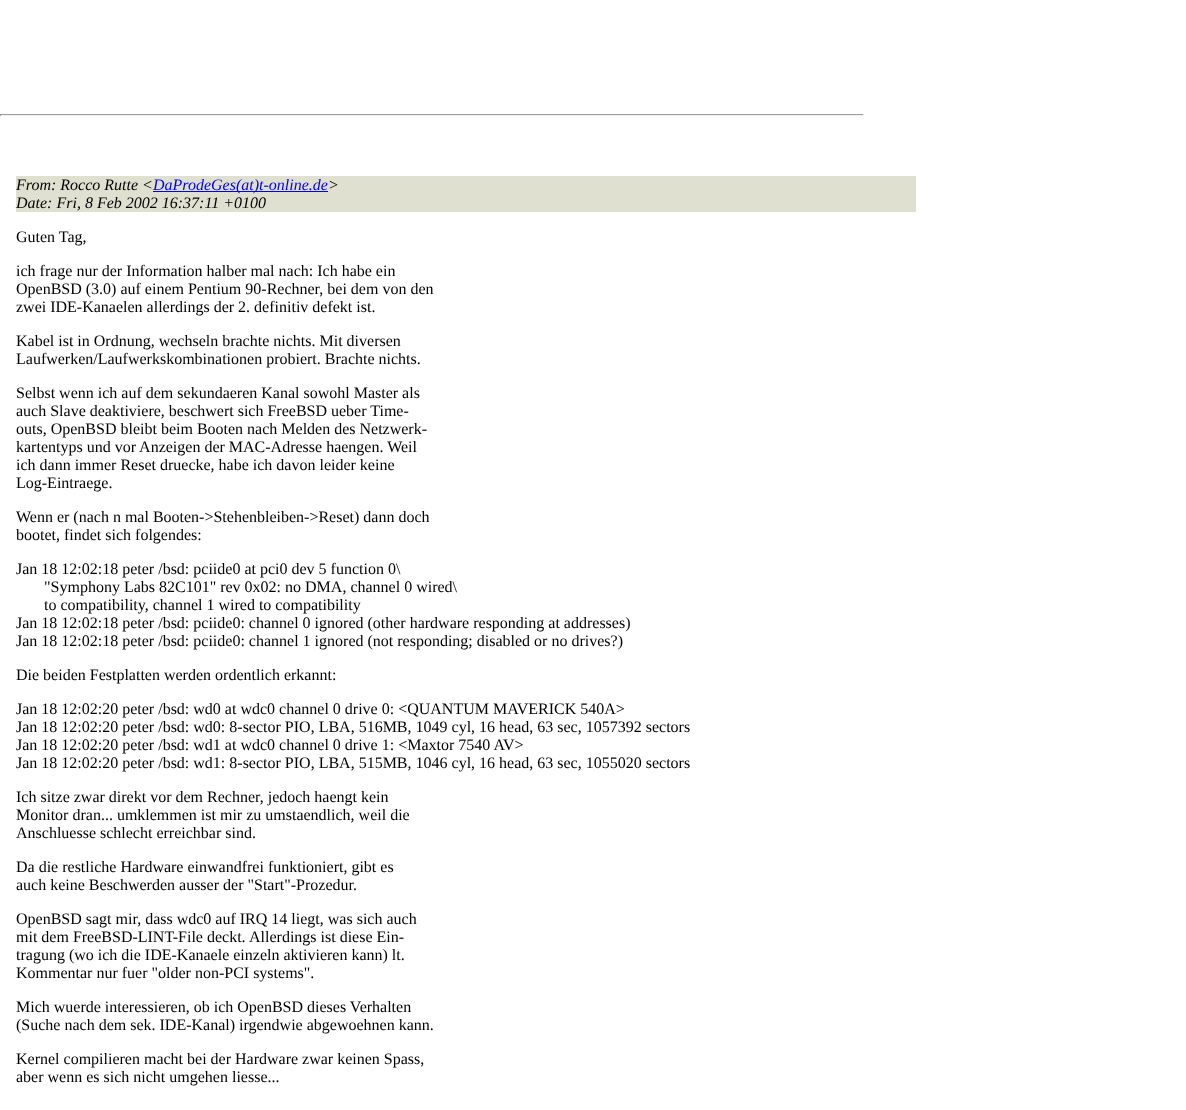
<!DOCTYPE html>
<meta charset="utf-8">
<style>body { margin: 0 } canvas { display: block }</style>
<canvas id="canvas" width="1186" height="1110"></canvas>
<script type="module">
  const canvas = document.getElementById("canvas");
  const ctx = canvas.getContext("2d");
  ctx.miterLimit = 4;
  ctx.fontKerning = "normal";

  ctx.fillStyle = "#ffffff";
  ctx.fillRect(0, 0, 1186, 1110);
  ctx.fillStyle = "#9f9f9f";
  ctx.fillRect(0, 114, 864, 1);
  ctx.fillStyle = "#eeeeee";
  ctx.fillRect(863, 114, 1, 2);
  ctx.fillRect(0, 115, 864, 1);
  ctx.fillStyle = "#9f9f9f";
  ctx.fillRect(0, 114, 1, 2);
  ctx.fillStyle = "#e0e0d0";
  ctx.fillRect(16, 176, 900, 36);
  ctx.font = "italic 16px Liberation Serif";
  ctx.fillStyle = "#000000";
  ctx.fillText("From: Rocco Rutte <", 16, 190);
  ctx.fillStyle = "#0000ee";
  ctx.fillRect(153, 191, 175, 1);
  ctx.fillText("DaProdeGes(at)t-online.de", 153, 190);
  ctx.fillStyle = "#000000";
  ctx.fillText(">", 328, 190);
  ctx.fillText("Date: Fri, 8 Feb 2002 16:37:11 +0100", 16, 208);
  ctx.font = "16px Liberation Serif";
  ctx.fillText("Guten Tag,", 16, 242);
  ctx.fillText("ich frage nur der Information halber mal nach: Ich habe ein", 16, 276);
  ctx.fillText("OpenBSD (3.0) auf einem Pentium 90-Rechner, bei dem von den", 16, 294);
  ctx.fillText("zwei IDE-Kanaelen allerdings der 2. definitiv defekt ist.", 16, 312);
  ctx.fillText("Kabel ist in Ordnung, wechseln brachte nichts. Mit diversen", 16, 346);
  ctx.fillText("Laufwerken/Laufwerkskombinationen probiert. Brachte nichts.", 16, 364);
  ctx.fillText("Selbst wenn ich auf dem sekundaeren Kanal sowohl Master als", 16, 398);
  ctx.fillText("auch Slave deaktiviere, beschwert sich FreeBSD ueber Time-", 16, 416);
  ctx.fillText("outs, OpenBSD bleibt beim Booten nach Melden des Netzwerk-", 16, 434);
  ctx.fillText("kartentyps und vor Anzeigen der MAC-Adresse haengen. Weil", 16, 452);
  ctx.fillText("ich dann immer Reset druecke, habe ich davon leider keine", 16, 470);
  ctx.fillText("Log-Eintraege.", 16, 488);
  ctx.fillText("Wenn er (nach n mal Booten->Stehenbleiben->Reset) dann doch", 16, 522);
  ctx.fillText("bootet, findet sich folgendes:", 16, 540);
  ctx.fillText("Jan 18 12:02:18 peter /bsd: pciide0 at pci0 dev 5 function 0\\", 16, 574);
  ctx.fillText("\"Symphony Labs 82C101\" rev 0x02: no DMA, channel 0 wired\\", 44, 592);
  ctx.fillText("to compatibility, channel 1 wired to compatibility", 44, 610);
  ctx.fillText("Jan 18 12:02:18 peter /bsd: pciide0: channel 0 ignored (other hardware responding at addresses)", 16, 628);
  ctx.fillText("Jan 18 12:02:18 peter /bsd: pciide0: channel 1 ignored (not responding; disabled or no drives?)", 16, 646);
  ctx.fillText("Die beiden Festplatten werden ordentlich erkannt:", 16, 680);
  ctx.fillText("Jan 18 12:02:20 peter /bsd: wd0 at wdc0 channel 0 drive 0: <QUANTUM MAVERICK 540A>", 16, 714);
  ctx.fillText("Jan 18 12:02:20 peter /bsd: wd0: 8-sector PIO, LBA, 516MB, 1049 cyl, 16 head, 63 sec, 1057392 sectors", 16, 732);
  ctx.fillText("Jan 18 12:02:20 peter /bsd: wd1 at wdc0 channel 0 drive 1: <Maxtor 7540 AV>", 16, 750);
  ctx.fillText("Jan 18 12:02:20 peter /bsd: wd1: 8-sector PIO, LBA, 515MB, 1046 cyl, 16 head, 63 sec, 1055020 sectors", 16, 768);
  ctx.fillText("Ich sitze zwar direkt vor dem Rechner, jedoch haengt kein", 16, 802);
  ctx.fillText("Monitor dran... umklemmen ist mir zu umstaendlich, weil die", 16, 820);
  ctx.fillText("Anschluesse schlecht erreichbar sind.", 16, 838);
  ctx.fillText("Da die restliche Hardware einwandfrei funktioniert, gibt es", 16, 872);
  ctx.fillText("auch keine Beschwerden ausser der \"Start\"-Prozedur.", 16, 890);
  ctx.fillText("OpenBSD sagt mir, dass wdc0 auf IRQ 14 liegt, was sich auch", 16, 924);
  ctx.fillText("mit dem FreeBSD-LINT-File deckt.", 16, 942);
  ctx.fillText("Allerdings ist diese Ein-", 249, 942);
  ctx.fillText("tragung (wo ich die IDE-Kanaele einzeln aktivieren kann) lt.", 16, 960);
  ctx.fillText("Kommentar nur fuer \"older non-PCI systems\".", 16, 978);
  ctx.fillText("Mich wuerde interessieren, ob ich OpenBSD dieses Verhalten", 16, 1012);
  ctx.fillText("(Suche nach dem sek. IDE-Kanal) irgendwie abgewoehnen kann.", 16, 1030);
  ctx.fillText("Kernel compilieren macht bei der Hardware zwar keinen Spass,", 16, 1064);
  ctx.fillText("aber wenn es sich nicht umgehen liesse...", 16, 1082);
</script>
